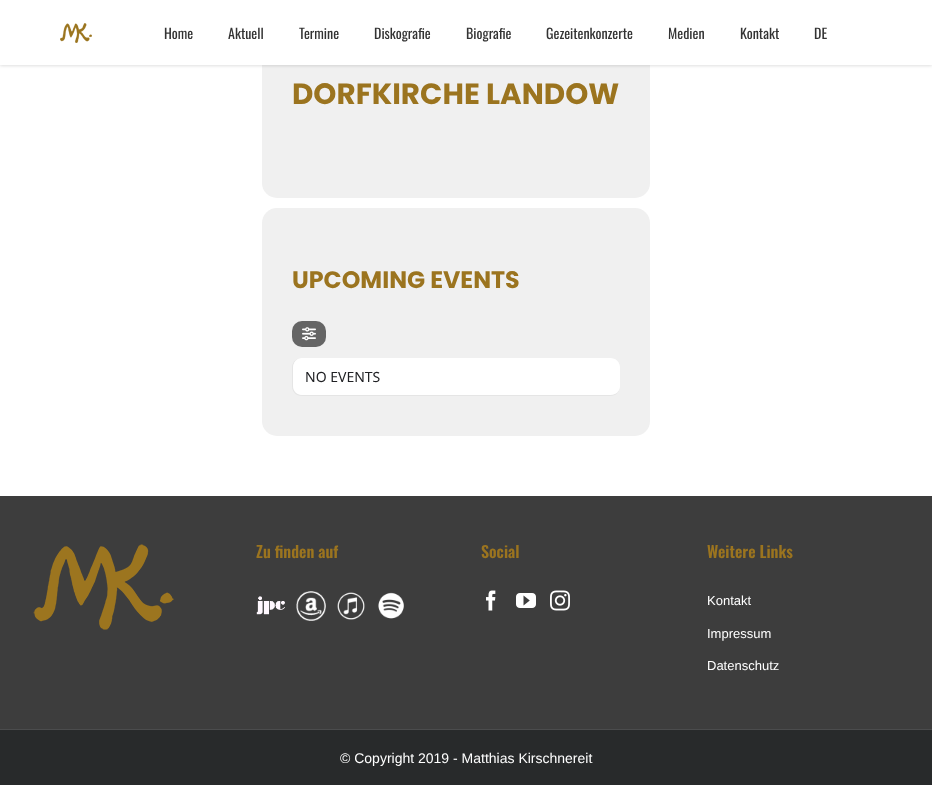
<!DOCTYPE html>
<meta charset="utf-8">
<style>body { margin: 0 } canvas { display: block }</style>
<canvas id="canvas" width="932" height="785"></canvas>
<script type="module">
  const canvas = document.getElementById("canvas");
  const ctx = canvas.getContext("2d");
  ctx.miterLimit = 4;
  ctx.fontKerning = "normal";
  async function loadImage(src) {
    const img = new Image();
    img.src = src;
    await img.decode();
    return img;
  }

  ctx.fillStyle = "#ffffff";
  ctx.fillRect(0, 0, 932, 785);
  ctx.fillStyle = "#f0f0f0";
  ctx.beginPath();
  ctx.roundRect(262, 42, 388, 156, 15);
  ctx.fill();
  ctx.fillStyle = "rgba(0, 0, 0, 0.12)";
  ctx.filter = "blur(1.5px)";
  ctx.beginPath();
  ctx.rect(0, 1, 932, 65);
  ctx.fill();
  ctx.filter = "none";
  ctx.fillStyle = "#ffffff";
  ctx.fillRect(0, 0, 932, 65);
  ctx.drawImage(await loadImage("img1.png"), 60, 23, 32, 20);
  ctx.font = "14px Oswald";
  ctx.fillStyle = "#333333";
  ctx.fillText("Home", 164, 39);
  ctx.fillText("Aktuell", 228, 39);
  ctx.fillText("Termine", 299, 39);
  ctx.fillText("Diskografie", 374, 39);
  ctx.fillText("Biografie", 466, 39);
  ctx.fillText("Gezeitenkonzerte", 546, 39);
  ctx.fillText("Medien", 668, 39);
  ctx.fillText("Kontakt", 740, 39);
  ctx.fillText("DE", 814, 39);
  ctx.font = "bold 29.4px Poppins";
  ctx.fillStyle = "#9b741f";
  ctx.fillText("DORFKIRCHE LANDOW", 292, 104);
  ctx.fillStyle = "#f0f0f0";
  ctx.beginPath();
  ctx.roundRect(262, 208, 388, 228, 15);
  ctx.fill();
  ctx.font = "bold 23.75px Poppins";
  ctx.fillStyle = "#9b741f";
  ctx.fillText("UPCOMING EVENTS", 292, 288);
  ctx.fillStyle = "#656565";
  ctx.beginPath();
  ctx.roundRect(292, 321, 34, 26, 10);
  ctx.fill();
  ctx.drawImage(await loadImage("img2.png"), 302, 327, 14, 14);
  ctx.fillStyle = "#e5e5e5";
  ctx.beginPath();
  ctx.moveTo(302, 358);
  ctx.lineTo(610, 358);
  ctx.bezierCurveTo(616, 358, 620, 362, 620, 368);
  ctx.lineTo(620, 386);
  ctx.bezierCurveTo(620, 392, 616, 396, 610, 396);
  ctx.lineTo(302, 396);
  ctx.bezierCurveTo(296, 396, 292, 392, 292, 386);
  ctx.lineTo(292, 368);
  ctx.bezierCurveTo(292, 362, 296, 358, 302, 358);
  ctx.closePath();
  ctx.moveTo(302, 358);
  ctx.lineTo(610, 358);
  ctx.bezierCurveTo(616, 358, 620, 362, 620, 368);
  ctx.lineTo(620, 386);
  ctx.bezierCurveTo(620, 391, 616, 395, 610, 395);
  ctx.lineTo(302, 395);
  ctx.bezierCurveTo(297, 395, 293, 391, 293, 386);
  ctx.lineTo(293, 368);
  ctx.bezierCurveTo(293, 362, 297, 358, 302, 358);
  ctx.closePath();
  ctx.fill("evenodd");
  ctx.fillStyle = "#ffffff";
  ctx.beginPath();
  ctx.moveTo(302, 358);
  ctx.bezierCurveTo(297, 358, 293, 362, 293, 368);
  ctx.lineTo(293, 386);
  ctx.bezierCurveTo(293, 391, 297, 395, 302, 395);
  ctx.lineTo(610, 395);
  ctx.bezierCurveTo(616, 395, 620, 391, 620, 386);
  ctx.lineTo(620, 368);
  ctx.bezierCurveTo(620, 362, 616, 358, 610, 358);
  ctx.closePath();
  ctx.fill();
  ctx.font = "14px Noto Sans";
  ctx.fillStyle = "#202124";
  ctx.fillText("NO EVENTS", 305, 382);
  ctx.fillStyle = "#3d3d3d";
  ctx.fillRect(0, 496, 932, 233);
  ctx.drawImage(await loadImage("img3.png"), 33, 544, 141, 86);
  ctx.font = "600 16px Oswald";
  ctx.fillStyle = "#9b741f";
  ctx.fillText("Zu finden auf", 256, 558);
  ctx.drawImage(await loadImage("img4.png"), 256, 596, 29, 19);
  ctx.drawImage(await loadImage("img5.png"), 296, 591, 30, 30);
  ctx.drawImage(await loadImage("img6.png"), 337, 592, 28, 28);
  ctx.drawImage(await loadImage("img7.png"), 378, 592, 26, 27);
  ctx.fillText("Social", 481, 558);
  ctx.drawImage(await loadImage("img8.png"), 486, 590, 10, 21);
  ctx.drawImage(await loadImage("img9.png"), 516, 593, 20, 15);
  ctx.drawImage(await loadImage("img10.png"), 550, 590, 20, 21);
  ctx.fillText("Weitere Links", 707, 558);
  ctx.font = "13px Liberation Sans";
  ctx.fillStyle = "#ffffff";
  ctx.fillText("Kontakt", 707, 605);
  ctx.fillText("Impressum", 707, 638);
  ctx.fillText("Datenschutz", 707, 670);
  ctx.fillStyle = "#282a2b";
  ctx.fillRect(0, 730, 932, 55);
  ctx.fillStyle = "#4b4c4d";
  ctx.fillRect(0, 729, 932, 1);
  ctx.font = "14px Liberation Sans";
  ctx.fillStyle = "#ffffff";
  ctx.fillText("© Copyright 2019 - Matthias Kirschnereit", 340, 763);
</script>
